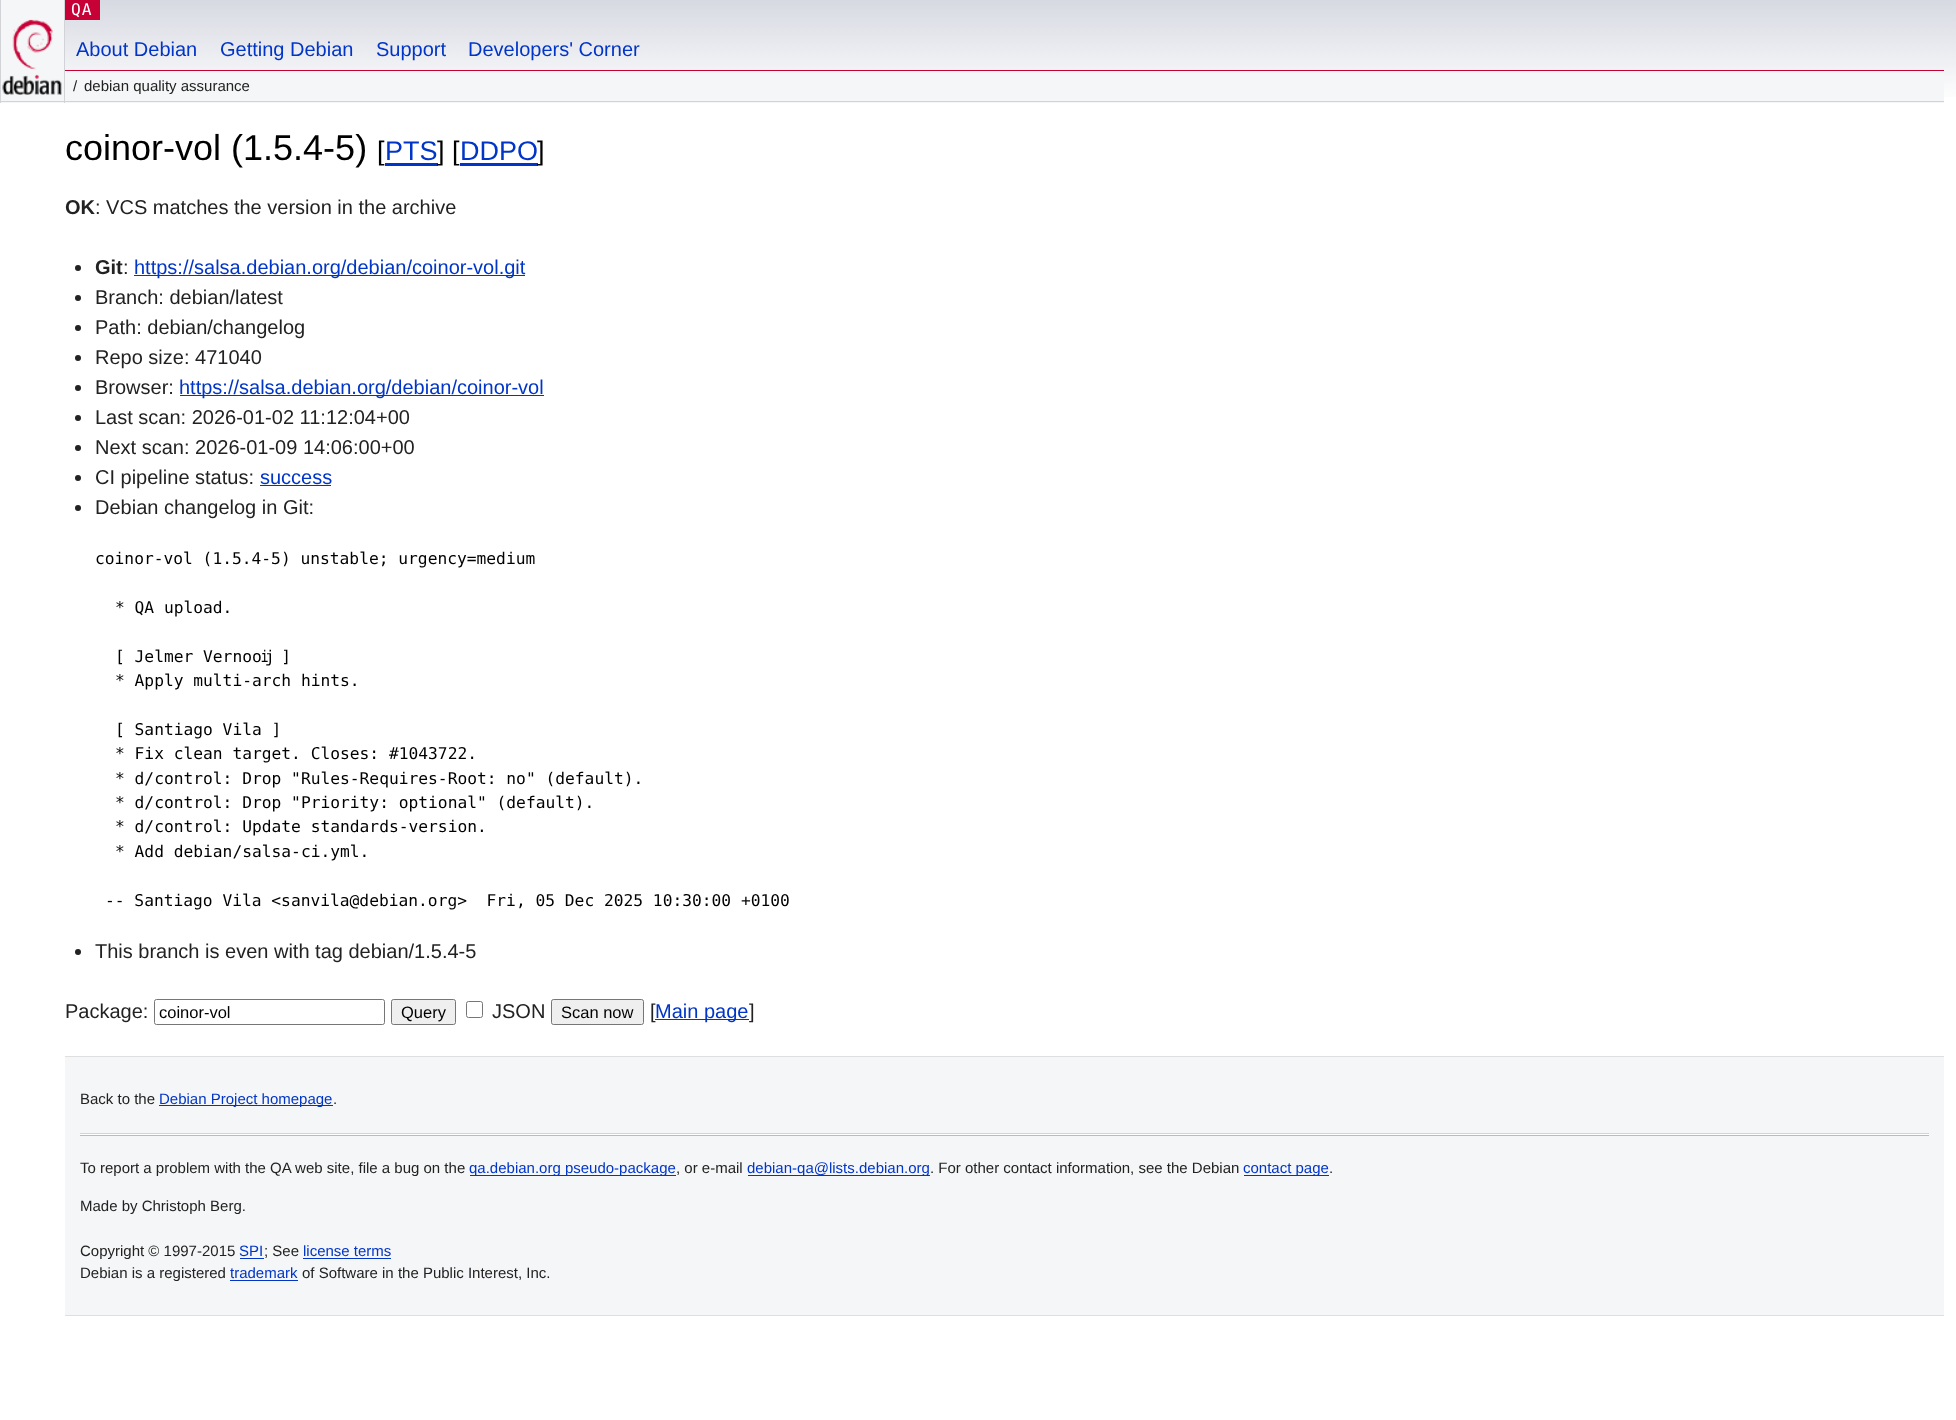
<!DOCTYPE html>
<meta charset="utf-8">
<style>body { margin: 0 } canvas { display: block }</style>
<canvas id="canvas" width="1956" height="1420"></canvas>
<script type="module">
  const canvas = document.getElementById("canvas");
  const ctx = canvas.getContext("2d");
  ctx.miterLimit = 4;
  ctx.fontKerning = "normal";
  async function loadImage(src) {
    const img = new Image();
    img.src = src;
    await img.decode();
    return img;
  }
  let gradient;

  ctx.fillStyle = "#ffffff";
  ctx.fillRect(0, 0, 1956, 1420);
  gradient = ctx.createLinearGradient(978, 0, 978, 103);
  gradient.addColorStop(0, "#d7d9e2");
  gradient.addColorStop(1, "#ffffff");
  ctx.fillStyle = gradient;
  ctx.fillRect(65, 0, 1891, 97);
  ctx.fillStyle = "#f5f6f7";
  ctx.fillRect(1, 0, 63, 103);
  ctx.fillStyle = "#d2d3d7";
  ctx.fillRect(64, 0, 1, 103);
  ctx.fillRect(0, 101, 65, 1);
  ctx.fillRect(0, 0, 1, 103);
  ctx.drawImage(await loadImage("img1.png"), 2, 19, 60, 76);
  ctx.fillStyle = "#c70036";
  ctx.fillRect(65, 0, 35, 20);
  ctx.letterSpacing = "1px";
  ctx.font = "16.25px DejaVu Sans Mono";
  ctx.fillStyle = "#ffffff";
  ctx.fillText("QA", 71, 15);
  ctx.fillStyle = "#c70036";
  ctx.fillRect(65, 70, 1879, 1);
  ctx.letterSpacing = "0px";
  ctx.font = "20px Liberation Sans";
  ctx.fillStyle = "#0035c7";
  ctx.fillText("About Debian", 76, 56);
  ctx.fillText("Getting Debian", 220, 56);
  ctx.fillText("Support", 376, 56);
  ctx.fillText("Developers' Corner", 468, 56);
  ctx.fillStyle = "#f5f6f7";
  ctx.fillRect(65, 71, 1879, 32);
  ctx.fillStyle = "#d2d3d7";
  ctx.fillRect(65, 101, 1879, 1);
  ctx.font = "15px Liberation Sans";
  ctx.fillStyle = "#222222";
  ctx.fillText("/", 73, 91);
  ctx.fillText("debian quality assurance", 84, 91);
  ctx.font = "36px Liberation Sans";
  ctx.fillStyle = "#000000";
  ctx.fillText("coinor-vol (1.5.4-5)", 65, 160);
  ctx.font = "27px Liberation Sans";
  ctx.fillText("[", 377, 160);
  ctx.fillStyle = "#0035c7";
  ctx.fillRect(385, 163, 53, 3);
  ctx.fillText("PTS", 385, 160);
  ctx.fillStyle = "#000000";
  ctx.fillText("] [", 437, 160);
  ctx.fillStyle = "#0035c7";
  ctx.fillRect(460, 163, 78, 3);
  ctx.fillText("DDPO", 460, 160);
  ctx.fillStyle = "#000000";
  ctx.fillText("]", 537, 160);
  ctx.font = "bold 20px Liberation Sans";
  ctx.fillStyle = "#222222";
  ctx.fillText("OK", 65, 214);
  ctx.font = "20px Liberation Sans";
  ctx.fillText(": VCS matches the version in the archive", 95, 214);
  ctx.beginPath();
  ctx.arc(78, 268, 3, 0, Math.PI * 2);
  ctx.fill();
  ctx.font = "bold 20px Liberation Sans";
  ctx.fillText("Git", 95, 274);
  ctx.font = "20px Liberation Sans";
  ctx.fillText(":", 123, 274);
  ctx.fillStyle = "#0035c7";
  ctx.fillRect(134, 275, 391, 1);
  ctx.fillText("https://salsa.debian.org/debian/coinor-vol.git", 134, 274);
  ctx.fillStyle = "#222222";
  ctx.beginPath();
  ctx.arc(78, 298, 3, 0, Math.PI * 2);
  ctx.fill();
  ctx.fillText("Branch: debian/latest", 95, 304);
  ctx.beginPath();
  ctx.arc(78, 328, 3, 0, Math.PI * 2);
  ctx.fill();
  ctx.fillText("Path: debian/changelog", 95, 334);
  ctx.beginPath();
  ctx.arc(78, 358, 3, 0, Math.PI * 2);
  ctx.fill();
  ctx.fillText("Repo size: 471040", 95, 364);
  ctx.beginPath();
  ctx.arc(78, 388, 3, 0, Math.PI * 2);
  ctx.fill();
  ctx.fillText("Browser:", 95, 394);
  ctx.fillStyle = "#0035c7";
  ctx.fillRect(180, 395, 364, 1);
  ctx.fillText("https://salsa.debian.org/debian/coinor-vol", 179, 394);
  ctx.fillStyle = "#222222";
  ctx.beginPath();
  ctx.arc(78, 418, 3, 0, Math.PI * 2);
  ctx.fill();
  ctx.fillText("Last scan: 2026-01-02 11:12:04+00", 95, 424);
  ctx.beginPath();
  ctx.arc(78, 448, 3, 0, Math.PI * 2);
  ctx.fill();
  ctx.fillText("Next scan: 2026-01-09 14:06:00+00", 95, 454);
  ctx.beginPath();
  ctx.arc(78, 478, 3, 0, Math.PI * 2);
  ctx.fill();
  ctx.fillText("CI pipeline status:", 95, 484);
  ctx.fillStyle = "#0035c7";
  ctx.fillText("success", 260, 484);
  ctx.fillRect(260, 485, 71, 1);
  ctx.fillStyle = "#222222";
  ctx.beginPath();
  ctx.arc(78, 508, 3, 0, Math.PI * 2);
  ctx.fill();
  ctx.fillText("Debian changelog in Git:", 95, 514);
  ctx.font = "16.25px DejaVu Sans Mono";
  ctx.fillStyle = "#000000";
  ctx.fillText("coinor-vol (1.5.4-5) unstable; urgency=medium", 95, 564);
  ctx.fillText("* QA upload.", 115, 613);
  ctx.fillText("[ Jelmer Vernooĳ ]", 115, 662);
  ctx.fillText("* Apply multi-arch hints.", 115, 686);
  ctx.fillText("[ Santiago Vila ]", 115, 735);
  ctx.fillText("* Fix clean target. Closes: #1043722.", 115, 759);
  ctx.fillText("* d/control: Drop \"Rules-Requires-Root: no\" (default).", 115, 784);
  ctx.fillText("* d/control: Drop \"Priority: optional\" (default).", 115, 808);
  ctx.fillText("* d/control: Update standards-version.", 115, 832);
  ctx.fillText("* Add debian/salsa-ci.yml.", 115, 857);
  ctx.fillText("-- Santiago Vila <sanvila@debian.org>  Fri, 05 Dec 2025 10:30:00 +0100", 105, 906);
  ctx.fillStyle = "#222222";
  ctx.beginPath();
  ctx.arc(78, 952, 3, 0, Math.PI * 2);
  ctx.fill();
  ctx.font = "20px Liberation Sans";
  ctx.fillText("This branch is even with tag debian/1.5.4-5", 95, 958);
  ctx.fillText("Package:", 65, 1018);
  ctx.beginPath();
  ctx.roundRect(154.5, 999.5, 230, 25, 2);
  ctx.strokeStyle = "#767676";
  ctx.stroke();
  ctx.font = "16.5px Liberation Sans";
  ctx.fillStyle = "#000000";
  ctx.fillText("coinor-vol", 159, 1018);
  ctx.fillStyle = "#efefef";
  ctx.beginPath();
  ctx.roundRect(391.5, 999.5, 64, 25, 2);
  ctx.fill();
  ctx.stroke();
  ctx.fillStyle = "#000000";
  ctx.fillText("Query", 401, 1018);
  ctx.beginPath();
  ctx.roundRect(466.5, 1001.5, 16, 16, 2);
  ctx.stroke();
  ctx.font = "20px Liberation Sans";
  ctx.fillStyle = "#222222";
  ctx.fillText("JSON", 492, 1018);
  ctx.fillStyle = "#efefef";
  ctx.beginPath();
  ctx.roundRect(551.5, 999.5, 92, 25, 2);
  ctx.fill();
  ctx.stroke();
  ctx.font = "16.5px Liberation Sans";
  ctx.fillStyle = "#000000";
  ctx.fillText("Scan now", 561, 1018);
  ctx.font = "20px Liberation Sans";
  ctx.fillStyle = "#222222";
  ctx.fillText("[", 650, 1018);
  ctx.fillStyle = "#0035c7";
  ctx.fillRect(655, 1019, 94, 1);
  ctx.fillText("Main page", 655, 1018);
  ctx.fillStyle = "#222222";
  ctx.fillText("]", 749, 1018);
  ctx.fillStyle = "#f5f6f7";
  ctx.fillRect(65, 1057, 1879, 258);
  ctx.fillStyle = "#dfdfe0";
  ctx.fillRect(65, 1056, 1879, 1);
  ctx.fillRect(65, 1315, 1879, 1);
  ctx.font = "15px Liberation Sans";
  ctx.fillStyle = "#222222";
  ctx.fillText("Back to the", 80, 1104);
  ctx.fillStyle = "#0035c7";
  ctx.fillRect(159, 1105, 174, 1);
  ctx.fillText("Debian Project homepage", 159, 1104);
  ctx.fillStyle = "#222222";
  ctx.fillText(".", 333, 1104);
  ctx.fillStyle = "#bbbbbb";
  ctx.fillRect(80, 1135, 1849, 1);
  ctx.fillStyle = "#d2d3d7";
  ctx.fillRect(80, 1133, 1849, 1);
  ctx.fillStyle = "#ffffff";
  ctx.fillRect(80, 1134, 1849, 1);
  ctx.fillStyle = "#222222";
  ctx.fillText("To report a problem with the QA web site, file a bug on the", 80, 1173);
  ctx.fillStyle = "#0035c7";
  ctx.fillRect(470, 1175, 206, 1);
  ctx.fillText("qa.debian.org pseudo-package", 469, 1173);
  ctx.fillStyle = "#222222";
  ctx.fillText(", or e-mail", 676, 1173);
  ctx.fillStyle = "#0035c7";
  ctx.fillRect(748, 1175, 182, 1);
  ctx.fillText("debian-qa@lists.debian.org", 747, 1173);
  ctx.fillStyle = "#222222";
  ctx.fillText(". For other contact information, see the Debian", 930, 1173);
  ctx.fillStyle = "#0035c7";
  ctx.fillRect(1244, 1175, 85, 1);
  ctx.fillText("contact page", 1243, 1173);
  ctx.fillStyle = "#222222";
  ctx.fillText(".", 1329, 1173);
  ctx.fillText("Made by Christoph Berg.", 80, 1211);
  ctx.fillText("Copyright © 1997-2015", 80, 1256);
  ctx.fillStyle = "#0035c7";
  ctx.fillText("SPI", 239, 1256);
  ctx.fillRect(240, 1258, 24, 1);
  ctx.fillStyle = "#222222";
  ctx.fillText("; See", 264, 1256);
  ctx.fillStyle = "#0035c7";
  ctx.fillText("license terms", 303, 1256);
  ctx.fillRect(303, 1258, 88, 1);
  ctx.fillStyle = "#222222";
  ctx.fillText("Debian is a registered", 80, 1278);
  ctx.fillStyle = "#0035c7";
  ctx.fillText("trademark", 230, 1278);
  ctx.fillRect(230, 1280, 68, 1);
  ctx.fillStyle = "#222222";
  ctx.fillText("of Software in the Public Interest, Inc.", 302, 1278);
</script>
